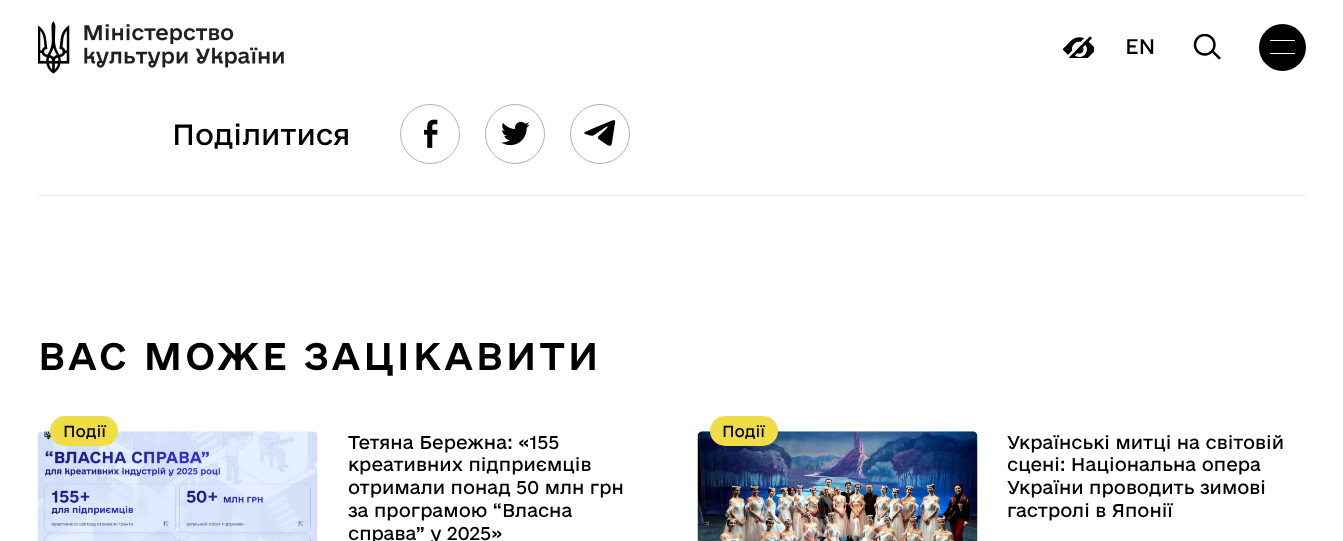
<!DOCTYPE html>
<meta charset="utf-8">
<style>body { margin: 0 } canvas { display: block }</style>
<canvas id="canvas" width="1343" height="541"></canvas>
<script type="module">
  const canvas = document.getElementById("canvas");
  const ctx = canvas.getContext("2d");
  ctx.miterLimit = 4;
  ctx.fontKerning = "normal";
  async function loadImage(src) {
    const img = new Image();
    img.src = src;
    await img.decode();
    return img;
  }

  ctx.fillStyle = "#ffffff";
  ctx.fillRect(0, 0, 1343, 541);
  ctx.drawImage(await loadImage("img1.png"), 38, 21, 246, 53);
  ctx.drawImage(await loadImage("img2.png"), 1063, 36, 31, 22);
  ctx.font = "20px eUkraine";
  ctx.fillStyle = "#000000";
  ctx.fillText("EN", 1125, 54);
  ctx.drawImage(await loadImage("img3.png"), 1193, 34, 28, 26);
  ctx.beginPath();
  ctx.arc(1282.5, 47.5, 23.5, 0, Math.PI * 2);
  ctx.fill();
  ctx.fillStyle = "#ffffff";
  ctx.fillRect(1270, 40, 25, 1);
  ctx.fillRect(1270, 53, 25, 1);
  ctx.fillStyle = "#e6ebe6";
  ctx.fillRect(38, 195, 1268, 1);
  ctx.font = "27.5px eUkraine";
  ctx.fillStyle = "#000000";
  ctx.fillText("Поділитися", 172, 145);
  ctx.beginPath();
  ctx.arc(430, 134, 29.5, 0, Math.PI * 2);
  ctx.strokeStyle = "#b3b3b3";
  ctx.stroke();
  ctx.drawImage(await loadImage("img4.png"), 424, 119, 14, 29);
  ctx.beginPath();
  ctx.arc(515, 134, 29.5, 0, Math.PI * 2);
  ctx.stroke();
  ctx.drawImage(await loadImage("img5.png"), 501, 121, 29, 25);
  ctx.beginPath();
  ctx.arc(600, 134, 29.5, 0, Math.PI * 2);
  ctx.stroke();
  ctx.drawImage(await loadImage("img6.png"), 584, 120, 32, 26);
  ctx.letterSpacing = "2.9px";
  ctx.font = "500 36.25px eUkraine";
  ctx.fillText("ВАС МОЖЕ ЗАЦІКАВИТИ", 38, 370);
  ctx.drawImage(await loadImage("img7.png"), 37, 431, 281, 110);
  ctx.fillStyle = "#f0dc45";
  ctx.beginPath();
  ctx.roundRect(50, 416, 68, 30, 15);
  ctx.fill();
  ctx.letterSpacing = "0px";
  ctx.font = "15px eUkraine";
  ctx.fillStyle = "#000000";
  ctx.fillText("Події", 63, 437);
  ctx.font = "17.5px eUkraine";
  ctx.fillText("Тетяна Бережна: «155", 348, 449);
  ctx.fillText("креативних підприємців", 348, 471);
  ctx.fillText("отримали понад 50 млн грн", 348, 494);
  ctx.fillText("за програмою “Власна", 348, 517);
  ctx.fillText("справа” у 2025»", 348, 540);
  ctx.drawImage(await loadImage("img8.png"), 697, 431, 281, 110);
  ctx.fillStyle = "#f0dc45";
  ctx.beginPath();
  ctx.roundRect(710, 416, 68, 30, 15);
  ctx.fill();
  ctx.font = "15px eUkraine";
  ctx.fillStyle = "#000000";
  ctx.fillText("Події", 722, 437);
  ctx.font = "17.5px eUkraine";
  ctx.fillText("Українські митці на світовій", 1007, 449);
  ctx.fillText("сцені: Національна опера", 1007, 471);
  ctx.fillText("України проводить зимові", 1007, 494);
  ctx.fillText("гастролі в Японії", 1007, 517);
</script>
